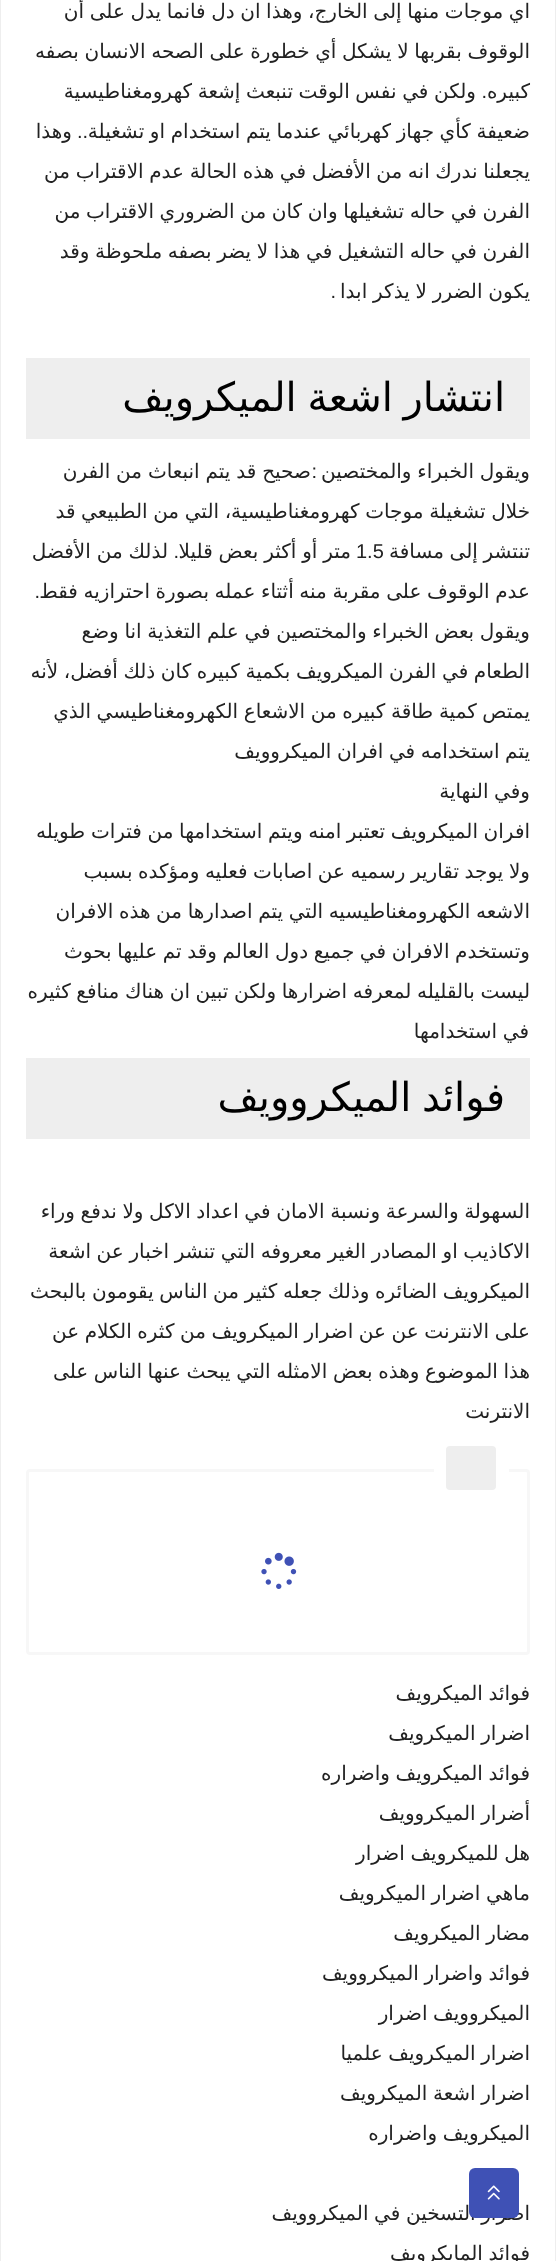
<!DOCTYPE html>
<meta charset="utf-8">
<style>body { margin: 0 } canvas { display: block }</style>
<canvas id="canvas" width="556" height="2261"></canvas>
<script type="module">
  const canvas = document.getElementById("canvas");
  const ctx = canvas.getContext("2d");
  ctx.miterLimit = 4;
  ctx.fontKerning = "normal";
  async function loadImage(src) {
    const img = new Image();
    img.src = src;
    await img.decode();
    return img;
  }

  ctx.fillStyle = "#ffffff";
  ctx.fillRect(0, 0, 556, 2261);
  ctx.strokeStyle = "#eeeeee";
  ctx.strokeRect(0.5, -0.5, 555, 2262);
  ctx.wordSpacing = "-0.75px";
  ctx.direction = "rtl";
  ctx.font = "20px DejaVu Sans";
  ctx.fillStyle = "#222222";
  ctx.fillText("اي موجات منها إلى الخارج، وهذا ان دل فانما يدل على أن", 530, 18);
  ctx.fillText("الوقوف بقربها لا يشكل أي خطورة على الصحه الانسان بصفه", 530, 58);
  ctx.wordSpacing = "0px";
  ctx.fillText("كبيره", 530, 98);
  ctx.font = "20px Liberation Sans";
  ctx.fillText(".", 487, 98);
  ctx.wordSpacing = "-0.75px";
  ctx.font = "20px DejaVu Sans";
  ctx.fillText("ولكن في نفس الوقت تنبعث إشعة كهرومغناطيسية", 476, 98);
  ctx.fillText("ضعيفة كأي جهاز كهربائي عندما يتم استخدام او تشغيلة", 530, 138);
  ctx.wordSpacing = "0px";
  ctx.font = "20px Liberation Sans";
  ctx.fillText("..", 88, 138);
  ctx.font = "20px DejaVu Sans";
  ctx.fillText("وهذا", 72, 138);
  ctx.wordSpacing = "-0.75px";
  ctx.fillText("يجعلنا ندرك انه من الأفضل في هذه الحالة عدم الاقتراب من", 530, 178);
  ctx.fillText("الفرن في حاله تشغيلها وان كان من الضروري الاقتراب من", 530, 218);
  ctx.fillText("الفرن في حاله التشغيل في هذا لا يضر بصفه ملحوظة وقد", 530, 258);
  ctx.wordSpacing = "-0.5px";
  ctx.fillText("يكون الضرر لا يذكر ابدا", 530, 298);
  ctx.wordSpacing = "0px";
  ctx.font = "20px Liberation Sans";
  ctx.fillText(".", 336, 298);
  ctx.fillStyle = "#eeeeee";
  ctx.fillRect(26, 358, 504, 81);
  ctx.wordSpacing = "-2px";
  ctx.font = "40px DejaVu Sans";
  ctx.fillStyle = "#000000";
  ctx.fillText("انتشار اشعة الميكرويف", 505, 411);
  ctx.wordSpacing = "-0.5px";
  ctx.font = "20px DejaVu Sans";
  ctx.fillStyle = "#222222";
  ctx.fillText("ويقول الخبراء والمختصين", 530, 478);
  ctx.fillText("صحيح قد يتم انبعاث من الفرن", 311, 478);
  ctx.wordSpacing = "0px";
  ctx.font = "20px Liberation Sans";
  ctx.fillText(":", 317, 478);
  ctx.wordSpacing = "-0.75px";
  ctx.font = "20px DejaVu Sans";
  ctx.fillText("خلال تشغيلة موجات كهرومغناطيسية، التي من الطبيعي قد", 530, 518);
  ctx.fillText("تنتشر إلى مسافة", 530, 558);
  ctx.wordSpacing = "0px";
  ctx.direction = "ltr";
  ctx.font = "20px Liberation Sans";
  ctx.fillText("1.5", 356, 558);
  ctx.wordSpacing = "-0.5px";
  ctx.direction = "rtl";
  ctx.font = "20px DejaVu Sans";
  ctx.fillText("متر أو أكثر بعض قليلا", 351, 558);
  ctx.wordSpacing = "0px";
  ctx.font = "20px Liberation Sans";
  ctx.fillText(".", 179, 558);
  ctx.wordSpacing = "-0.5px";
  ctx.font = "20px DejaVu Sans";
  ctx.fillText("لذلك من الأفضل", 168, 558);
  ctx.wordSpacing = "-0.75px";
  ctx.fillText("عدم الوقوف على مقربة منه أثتاء عمله بصورة احترازيه فقط", 530, 598);
  ctx.wordSpacing = "0px";
  ctx.font = "20px Liberation Sans";
  ctx.fillText(".", 40, 598);
  ctx.wordSpacing = "-0.75px";
  ctx.font = "20px DejaVu Sans";
  ctx.fillText("ويقول بعض الخبراء والمختصين في علم التغذية انا وضع", 530, 638);
  ctx.fillText("الطعام في الفرن الميكرويف بكمية كبيره كان ذلك أفضل، لأنه", 530, 678);
  ctx.fillText("يمتص كمية طاقة كبيره من الاشعاع الكهرومغناطيسي الذي", 530, 718);
  ctx.fillText("يتم استخدامه في افران الميكروويف", 530, 758);
  ctx.fillText("وفي النهاية", 530, 798);
  ctx.fillText("افران الميكرويف تعتبر امنه ويتم استخدامها من فترات طويله", 530, 838);
  ctx.fillText("ولا يوجد تقارير رسميه عن اصابات فعليه ومؤكده بسبب", 530, 878);
  ctx.fillText("الاشعه الكهرومغناطيسيه التي يتم اصدارها من هذه الافران", 530, 918);
  ctx.fillText("وتستخدم الافران في جميع دول العالم وقد تم عليها بحوث", 530, 958);
  ctx.fillText("ليست بالقليله لمعرفه اضرارها ولكن تبين ان هناك منافع كثيره", 530, 998);
  ctx.fillText("في استخدامها", 529, 1038);
  ctx.fillStyle = "#eeeeee";
  ctx.fillRect(26, 1058, 504, 81);
  ctx.wordSpacing = "-2px";
  ctx.font = "40px DejaVu Sans";
  ctx.fillStyle = "#000000";
  ctx.fillText("فوائد الميكروويف", 505, 1111);
  ctx.wordSpacing = "-0.75px";
  ctx.font = "20px DejaVu Sans";
  ctx.fillStyle = "#222222";
  ctx.fillText("السهولة والسرعة ونسبة الامان في اعداد الاكل ولا ندفع وراء", 530, 1218);
  ctx.fillText("الاكاذيب او المصادر الغير معروفه التي تنشر اخبار عن اشعة", 530, 1258);
  ctx.fillText("الميكرويف الضائره وذلك جعله كثير من الناس يقومون بالبحث", 530, 1298);
  ctx.fillText("على الانترنت عن عن اضرار الميكرويف من كثره الكلام عن", 530, 1338);
  ctx.fillText("هذا الموضوع وهذه بعض الامثله التي يبحث عنها الناس على", 530, 1378);
  ctx.wordSpacing = "0px";
  ctx.fillText("الانترنت", 530, 1418);
  ctx.beginPath();
  ctx.roundRect(27.5, 1470.5, 501, 183, 2.5);
  ctx.strokeStyle = "#f7f7f7";
  ctx.lineWidth = 3;
  ctx.stroke();
  ctx.fillStyle = "#ffffff";
  ctx.fillRect(434, 1469, 75, 3);
  ctx.fillStyle = "#eeeeee";
  ctx.beginPath();
  ctx.roundRect(446, 1446, 50, 44, 4);
  ctx.fill();
  ctx.drawImage(await loadImage("img1.png"), 261, 1552, 36, 37);
  ctx.wordSpacing = "-0.75px";
  ctx.fillStyle = "#222222";
  ctx.fillText("فوائد الميكرويف", 530, 1700);
  ctx.fillText("اضرار الميكرويف", 530, 1740);
  ctx.fillText("فوائد الميكرويف واضراره", 530, 1780);
  ctx.fillText("أضرار الميكروويف", 530, 1820);
  ctx.fillText("هل للميكرويف اضرار", 530, 1860);
  ctx.fillText("ماهي اضرار الميكرويف", 530, 1900);
  ctx.fillText("مضار الميكرويف", 530, 1940);
  ctx.fillText("فوائد واضرار الميكروويف", 530, 1980);
  ctx.fillText("الميكروويف اضرار", 530, 2020);
  ctx.fillText("اضرار الميكرويف علميا", 530, 2060);
  ctx.fillText("اضرار اشعة الميكرويف", 530, 2100);
  ctx.fillText("الميكرويف واضراره", 530, 2140);
  ctx.fillText("اضرار التسخين في الميكروويف", 530, 2220);
  ctx.fillText("فوائد المايكرويف", 530, 2260);
  ctx.fillStyle = "#3f51b5";
  ctx.beginPath();
  ctx.roundRect(469, 2168, 50, 50, 6);
  ctx.fill();
  ctx.drawImage(await loadImage("img2.png"), 487, 2185, 13, 15);
</script>
